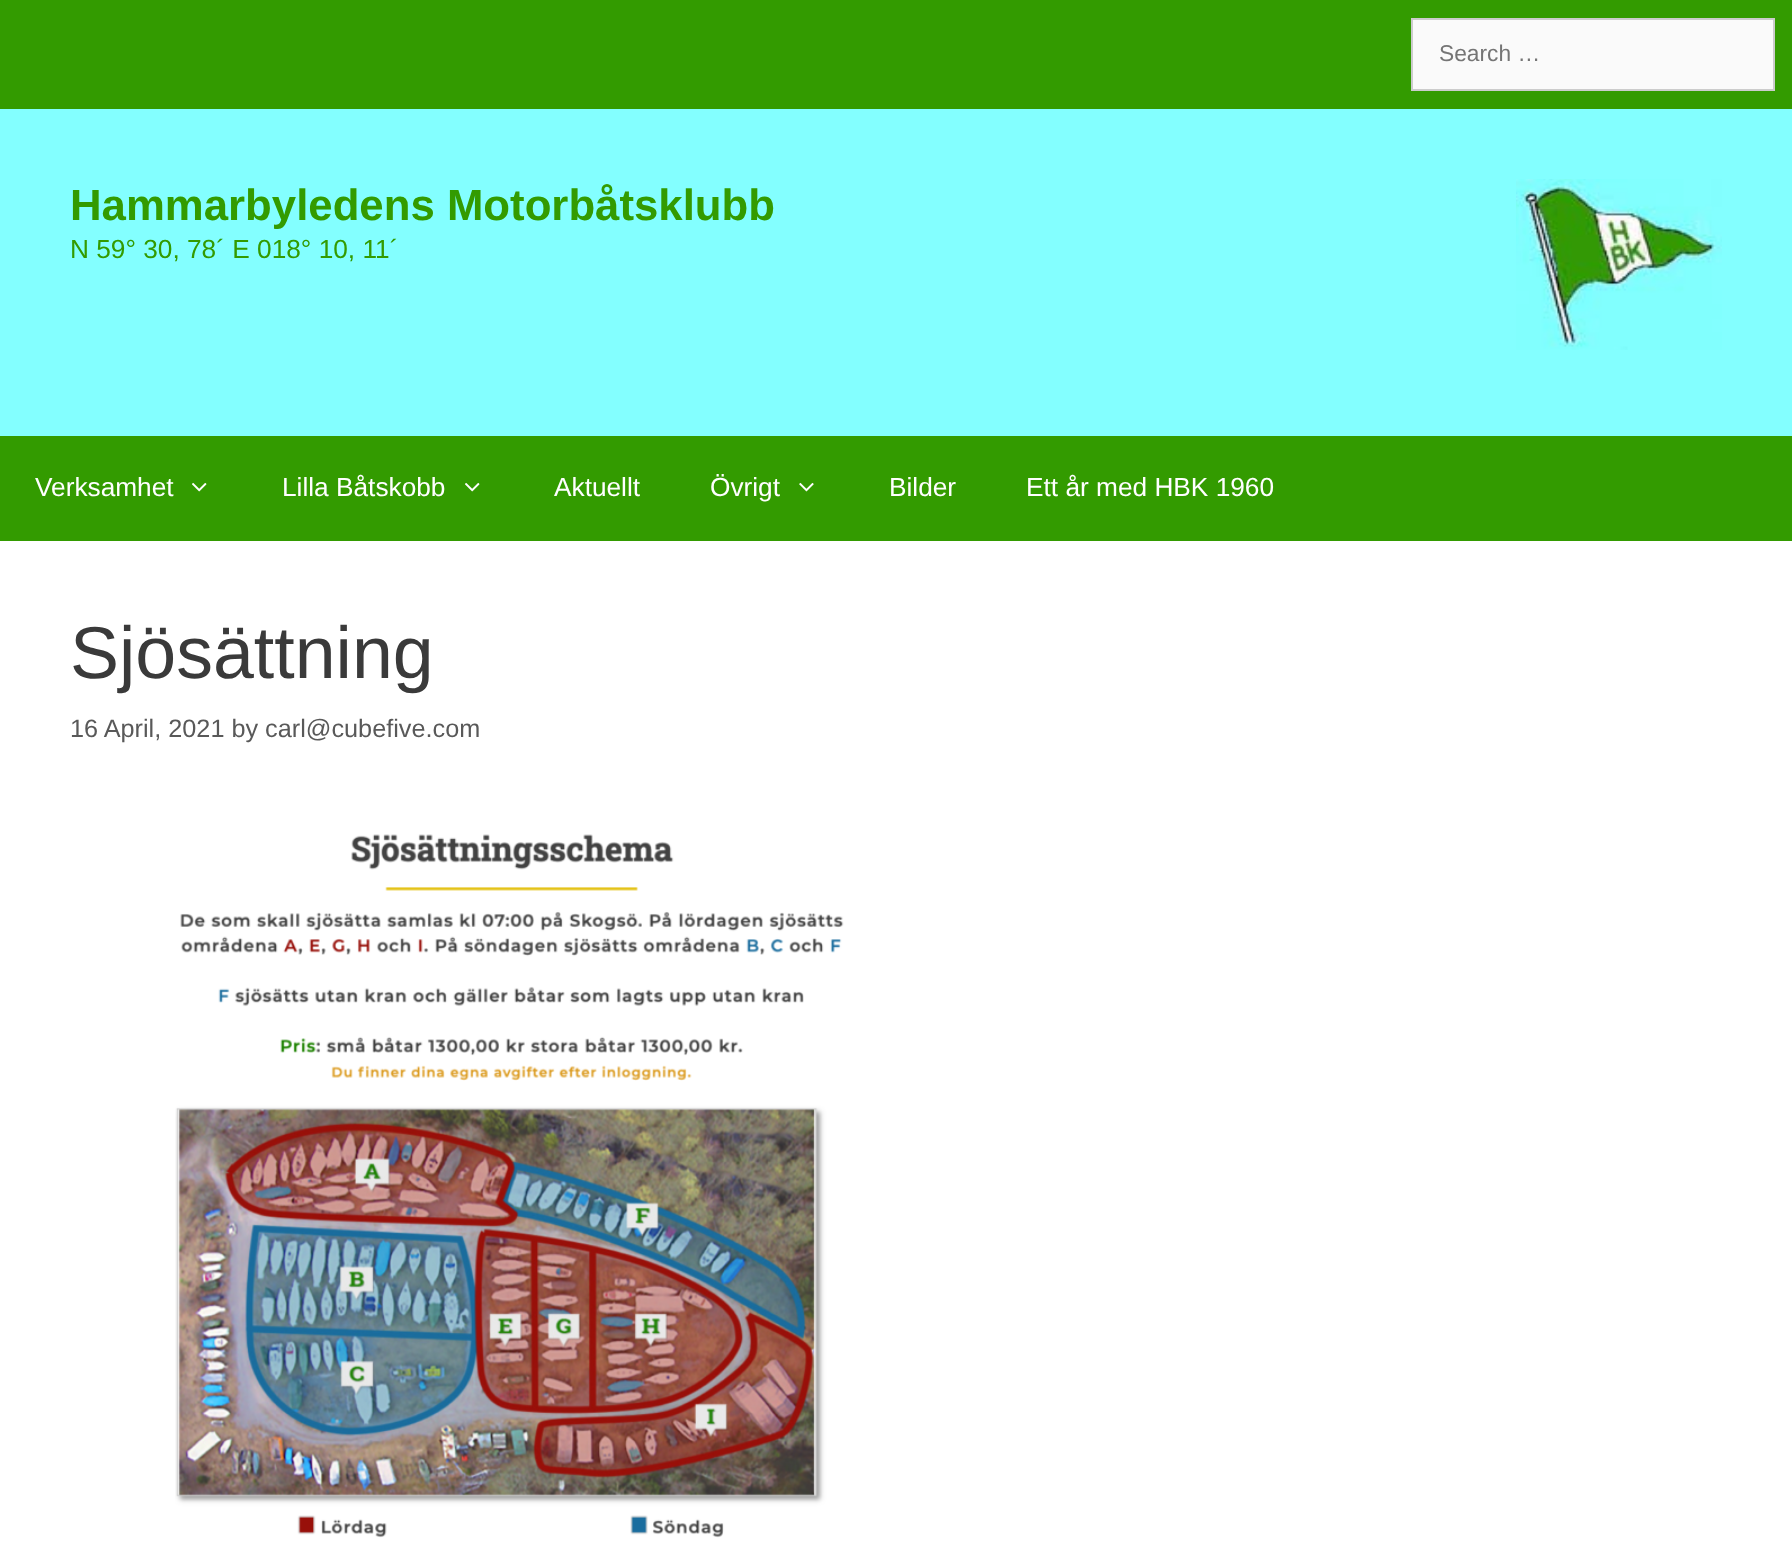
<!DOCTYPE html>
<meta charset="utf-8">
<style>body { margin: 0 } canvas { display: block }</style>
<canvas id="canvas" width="1792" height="1546"></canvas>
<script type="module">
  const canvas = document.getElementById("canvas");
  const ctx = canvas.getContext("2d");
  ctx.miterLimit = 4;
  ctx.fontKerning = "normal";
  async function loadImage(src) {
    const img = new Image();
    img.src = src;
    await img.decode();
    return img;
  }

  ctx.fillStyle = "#339b00";
  ctx.fillRect(0, 0, 1792, 1546);
  ctx.fillStyle = "#fafafa";
  ctx.beginPath();
  ctx.rect(1412, 19, 362, 71);
  ctx.fill();
  ctx.strokeStyle = "#cccccc";
  ctx.lineWidth = 2;
  ctx.stroke();
  ctx.font = "22.75px Liberation Sans";
  ctx.fillStyle = "#757575";
  ctx.fillText("Search …", 1439, 61);
  ctx.fillStyle = "#83ffff";
  ctx.fillRect(0, 109, 1792, 327);
  ctx.font = "bold 43.75px Liberation Sans";
  ctx.fillStyle = "#339b00";
  ctx.fillText("Hammarbyledens Motorbåtsklubb", 70, 220);
  ctx.font = "26.25px Liberation Sans";
  ctx.fillText("N 59° 30, 78´ E 018° 10, 11´", 70, 258);
  ctx.drawImage(await loadImage("img1.png"), 1516, 179, 206, 171);
  ctx.fillStyle = "#ffffff";
  ctx.fillText("Verksamhet", 35, 496);
  ctx.drawImage(await loadImage("img2.png"), 192, 482, 15, 10);
  ctx.fillText("Lilla Båtskobb", 282, 496);
  ctx.drawImage(await loadImage("img2.png"), 465, 482, 15, 10);
  ctx.fillText("Aktuellt", 554, 496);
  ctx.fillText("Övrigt", 710, 496);
  ctx.drawImage(await loadImage("img3.png"), 799, 482, 15, 10);
  ctx.fillText("Bilder", 889, 496);
  ctx.fillText("Ett år med HBK 1960", 1026, 496);
  ctx.fillRect(0, 541, 1792, 1005);
  ctx.font = "73.5px Liberation Sans";
  ctx.fillStyle = "#3a3a3a";
  ctx.fillText("Sjösättning", 70, 678);
  ctx.font = "25.25px Liberation Sans";
  ctx.fillStyle = "#595959";
  ctx.fillText("16 April, 2021 by carl@cubefive.com", 70, 737);
  ctx.drawImage(await loadImage("img4.png"), 175, 834, 669, 704);
</script>
